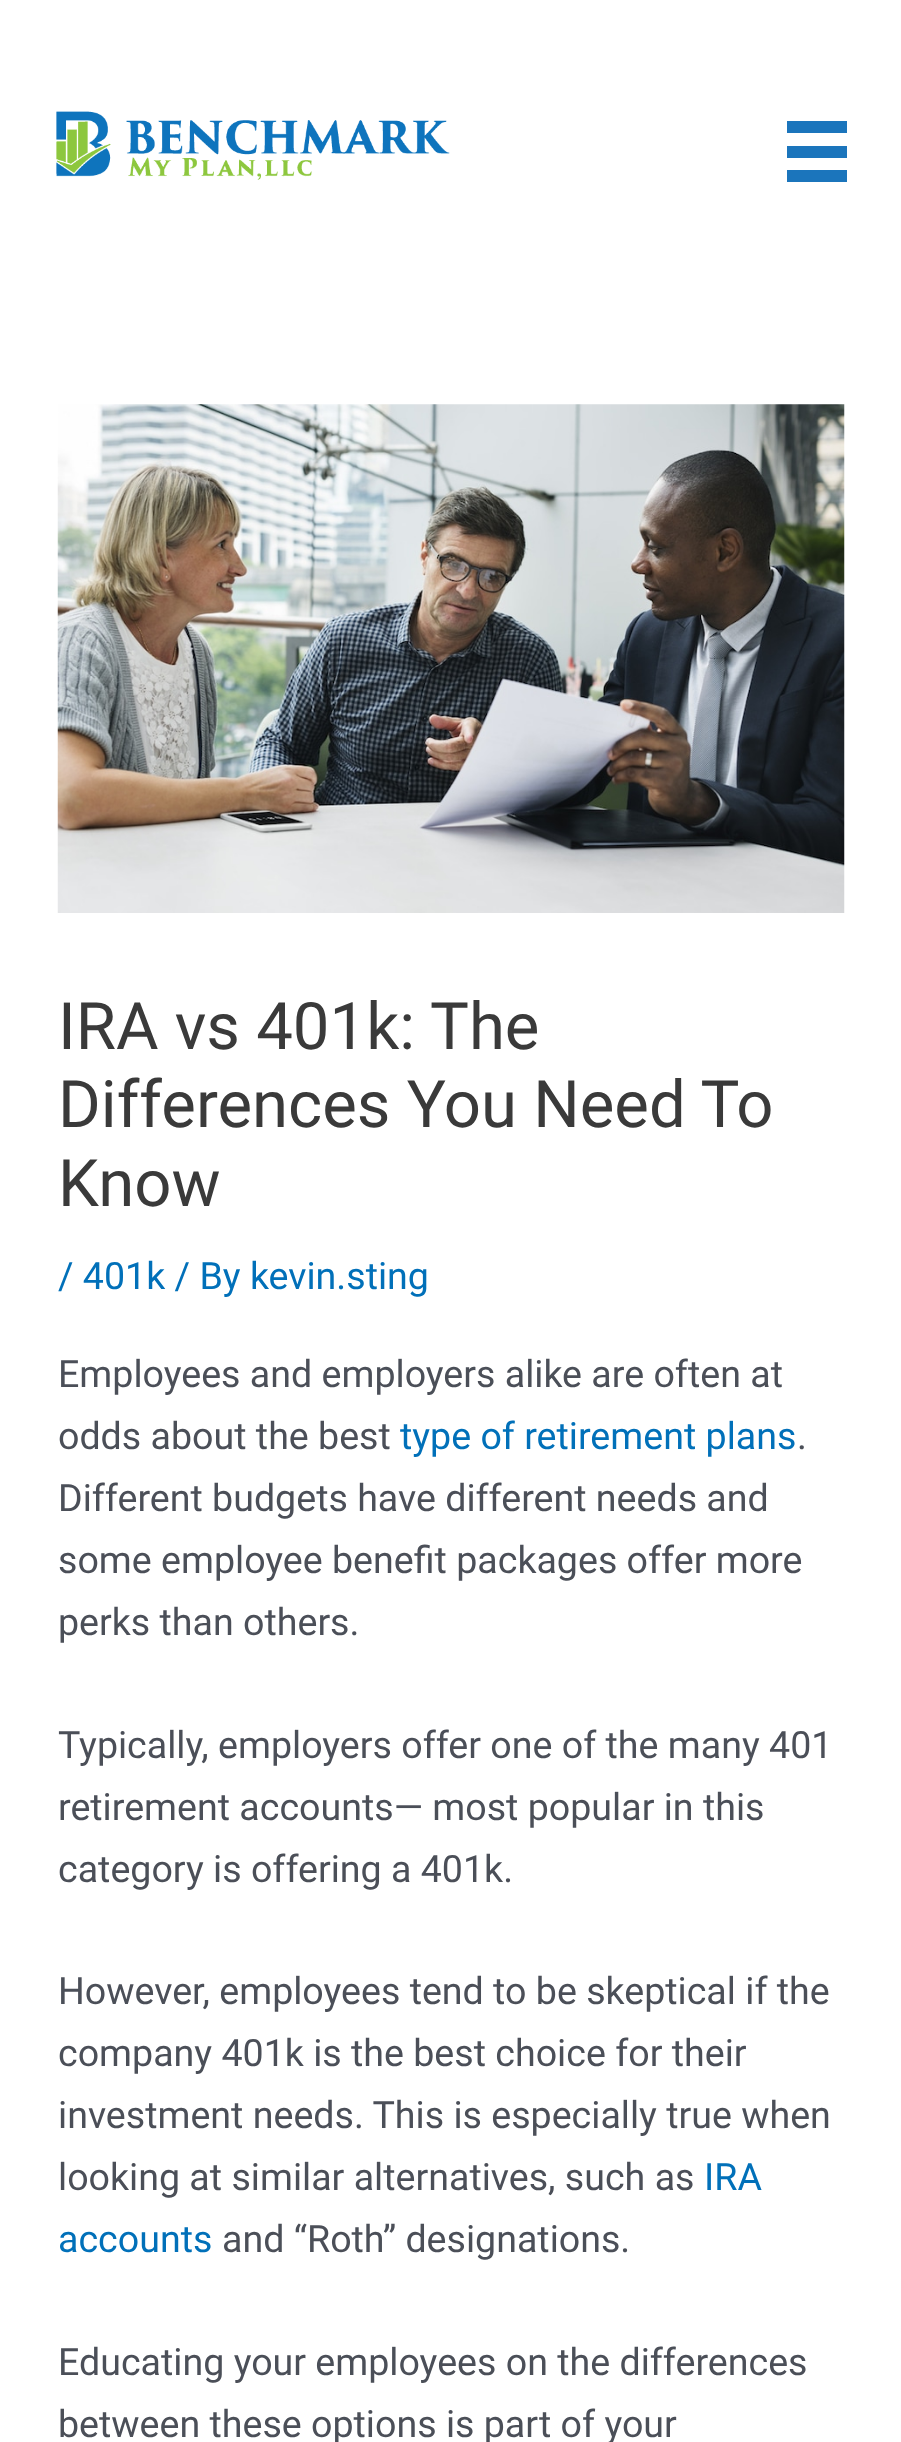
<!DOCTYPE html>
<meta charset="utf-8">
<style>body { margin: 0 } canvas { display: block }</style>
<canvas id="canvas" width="901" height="2442"></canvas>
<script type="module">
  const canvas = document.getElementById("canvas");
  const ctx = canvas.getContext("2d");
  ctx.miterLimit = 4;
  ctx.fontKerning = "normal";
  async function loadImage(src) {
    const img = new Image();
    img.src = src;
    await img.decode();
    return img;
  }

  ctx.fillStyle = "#ffffff";
  ctx.fillRect(0, 0, 901, 2442);
  ctx.drawImage(await loadImage("img1.png"), 56, 111, 394, 69);
  ctx.fillStyle = "#1b75bc";
  ctx.fillRect(787, 121, 60, 12);
  ctx.fillRect(787, 146, 60, 12);
  ctx.fillRect(787, 170, 60, 12);
  ctx.drawImage(await loadImage("img2.png"), 57, 404, 788, 509);
  ctx.font = "65.25px Roboto";
  ctx.fillStyle = "#3a3a3a";
  ctx.fillText("IRA vs 401k: The", 58, 1049);
  ctx.fillText("Differences You Need To", 58, 1127);
  ctx.fillText("Know", 58, 1206);
  ctx.font = "37.6px Roboto";
  ctx.fillStyle = "#0170b9";
  ctx.fillText("/ 401k / By kevin.sting", 58, 1289);
  ctx.fillStyle = "#4b4f58";
  ctx.fillText("Employees and employers alike are often at", 58, 1387);
  ctx.fillText("odds about the best", 58, 1449);
  ctx.fillStyle = "#0170b9";
  ctx.fillText("type of retirement plans", 400, 1449);
  ctx.fillStyle = "#4b4f58";
  ctx.fillText(".", 797, 1449);
  ctx.fillText("Different budgets have different needs and", 58, 1511);
  ctx.fillText("some employee benefit packages offer more", 58, 1573);
  ctx.fillText("perks than others.", 58, 1635);
  ctx.fillText("Typically, employers offer one of the many 401", 58, 1758);
  ctx.fillText("retirement accounts— most popular in this", 58, 1820);
  ctx.fillText("category is offering a 401k.", 58, 1882);
  ctx.fillText("However, employees tend to be skeptical if the", 58, 2004);
  ctx.fillText("company 401k is the best choice for their", 58, 2066);
  ctx.fillText("investment needs. This is especially true when", 58, 2128);
  ctx.fillText("looking at similar alternatives, such as", 58, 2190);
  ctx.fillStyle = "#0170b9";
  ctx.fillText("IRA", 704, 2190);
  ctx.fillText("accounts", 58, 2252);
  ctx.fillStyle = "#4b4f58";
  ctx.fillText("and “Roth” designations.", 222, 2252);
  ctx.fillText("Educating your employees on the differences", 58, 2375);
  ctx.fillText("between these options is part of your", 58, 2437);
</script>
